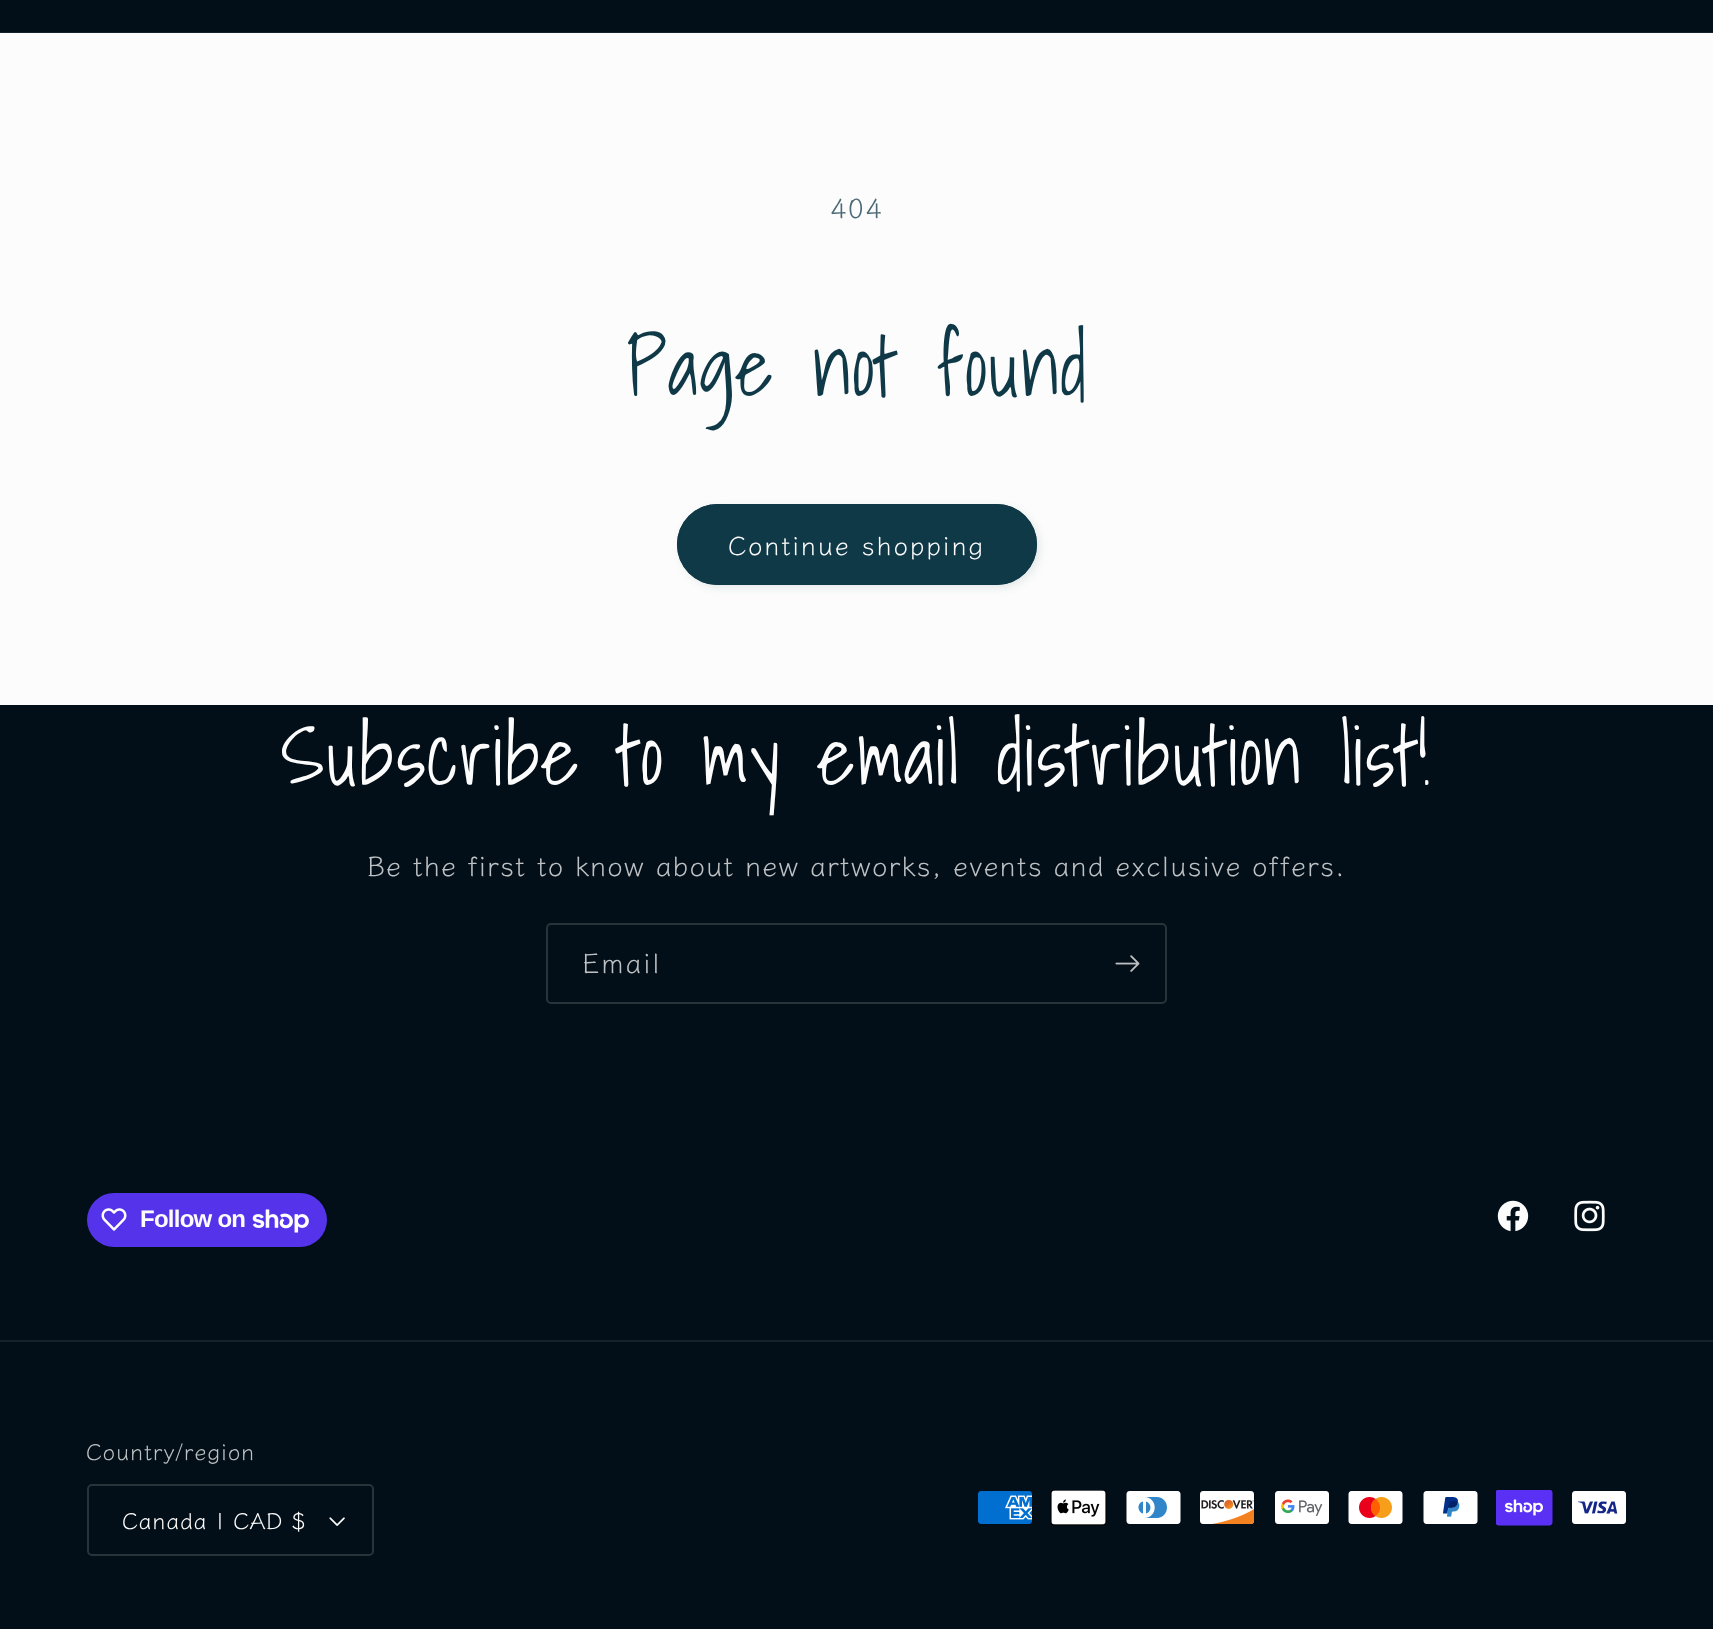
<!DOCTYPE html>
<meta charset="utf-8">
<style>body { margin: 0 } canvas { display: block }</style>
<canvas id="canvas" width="1713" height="1629"></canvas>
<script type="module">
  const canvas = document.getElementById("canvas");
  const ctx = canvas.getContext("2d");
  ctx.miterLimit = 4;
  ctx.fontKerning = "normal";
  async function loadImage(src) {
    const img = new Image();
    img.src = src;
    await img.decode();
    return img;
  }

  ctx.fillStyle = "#fcfcfc";
  ctx.fillRect(0, 0, 1713, 1629);
  ctx.fillStyle = "#020f18";
  ctx.fillRect(0, 0, 1713, 32);
  ctx.fillStyle = "#16222a";
  ctx.fillRect(0, 32, 1713, 1);
  ctx.letterSpacing = "1.03px";
  ctx.font = "27.6px Klee One";
  ctx.fillStyle = "#4b6a75";
  ctx.fillText("404", 830, 218);
  ctx.letterSpacing = "1.2px";
  ctx.font = "81px Shadows Into Light";
  ctx.fillStyle = "#103948";
  ctx.fillText("Page not found", 626, 396);
  ctx.fillStyle = "rgba(16, 57, 72, 0.1)";
  ctx.filter = "blur(4px)";
  ctx.beginPath();
  ctx.roundRect(680, 507, 360, 81, 40.5);
  ctx.fill();
  ctx.filter = "none";
  ctx.fillStyle = "#103948";
  ctx.beginPath();
  ctx.roundRect(677, 504, 360, 81, 40.5);
  ctx.fill();
  ctx.beginPath();
  ctx.roundRect(678, 505, 358, 79, 39.5);
  ctx.strokeStyle = "#103948";
  ctx.lineWidth = 2;
  ctx.stroke();
  ctx.letterSpacing = "1.75px";
  ctx.font = "25.9px Klee One";
  ctx.fillStyle = "#fcfcfc";
  ctx.fillText("Continue shopping", 728, 555);
  ctx.fillStyle = "#020f18";
  ctx.fillRect(0, 705, 1713, 924);
  ctx.letterSpacing = "1.2px";
  ctx.font = "81px Shadows Into Light";
  ctx.fillStyle = "#fcfcfc";
  ctx.fillText("Subscribe to my email distribution list!", 281, 785);
  ctx.letterSpacing = "1.03px";
  ctx.font = "27.6px Klee One";
  ctx.fillStyle = "#bec1c3";
  ctx.fillText("Be the first to know about new artworks, events and exclusive offers.", 367, 876);
  ctx.beginPath();
  ctx.roundRect(547, 924, 619, 79, 4);
  ctx.strokeStyle = "#28333a";
  ctx.stroke();
  ctx.letterSpacing = "1.75px";
  ctx.fillText("Email", 582, 973);
  ctx.drawImage(await loadImage("img1.png"), 1115, 955, 25, 17);
  ctx.fillStyle = "#5433eb";
  ctx.beginPath();
  ctx.roundRect(87, 1193, 240, 54, 27);
  ctx.fill();
  ctx.drawImage(await loadImage("img2.png"), 101, 1208, 26, 23);
  ctx.letterSpacing = "-0.75px";
  ctx.font = "bold 24px Liberation Sans";
  ctx.fillStyle = "#fcfcfc";
  ctx.fillText("Follow on", 140, 1227);
  ctx.drawImage(await loadImage("img3.png"), 252, 1209, 57, 24);
  ctx.drawImage(await loadImage("img4.png"), 1497, 1200, 32, 32);
  ctx.drawImage(await loadImage("img5.png"), 1574, 1200, 31, 32);
  ctx.fillStyle = "#16222a";
  ctx.fillRect(0, 1340, 1713, 2);
  ctx.letterSpacing = "0.75px";
  ctx.font = "22.5px Klee One";
  ctx.fillStyle = "#bec1c3";
  ctx.fillText("Country/region", 86, 1460);
  ctx.drawImage(await loadImage("img6.png"), 329, 1517, 16, 9);
  ctx.beginPath();
  ctx.roundRect(88, 1485, 285, 70, 4);
  ctx.stroke();
  ctx.fillStyle = "#fcfcfc";
  ctx.fillText("Canada | CAD $", 122, 1529);
  ctx.drawImage(await loadImage("img7.png"), 978, 1491, 54, 33);
  ctx.drawImage(await loadImage("img8.png"), 1050, 1490, 57, 36);
  ctx.drawImage(await loadImage("img9.png"), 1126, 1491, 55, 33);
  ctx.drawImage(await loadImage("img10.png"), 1200, 1491, 55, 33);
  ctx.drawImage(await loadImage("img11.png"), 1275, 1491, 54, 33);
  ctx.drawImage(await loadImage("img12.png"), 1348, 1491, 55, 33);
  ctx.drawImage(await loadImage("img13.png"), 1423, 1491, 55, 33);
  ctx.drawImage(await loadImage("img14.png"), 1496, 1490, 57, 36);
  ctx.drawImage(await loadImage("img15.png"), 1572, 1491, 54, 33);
</script>
